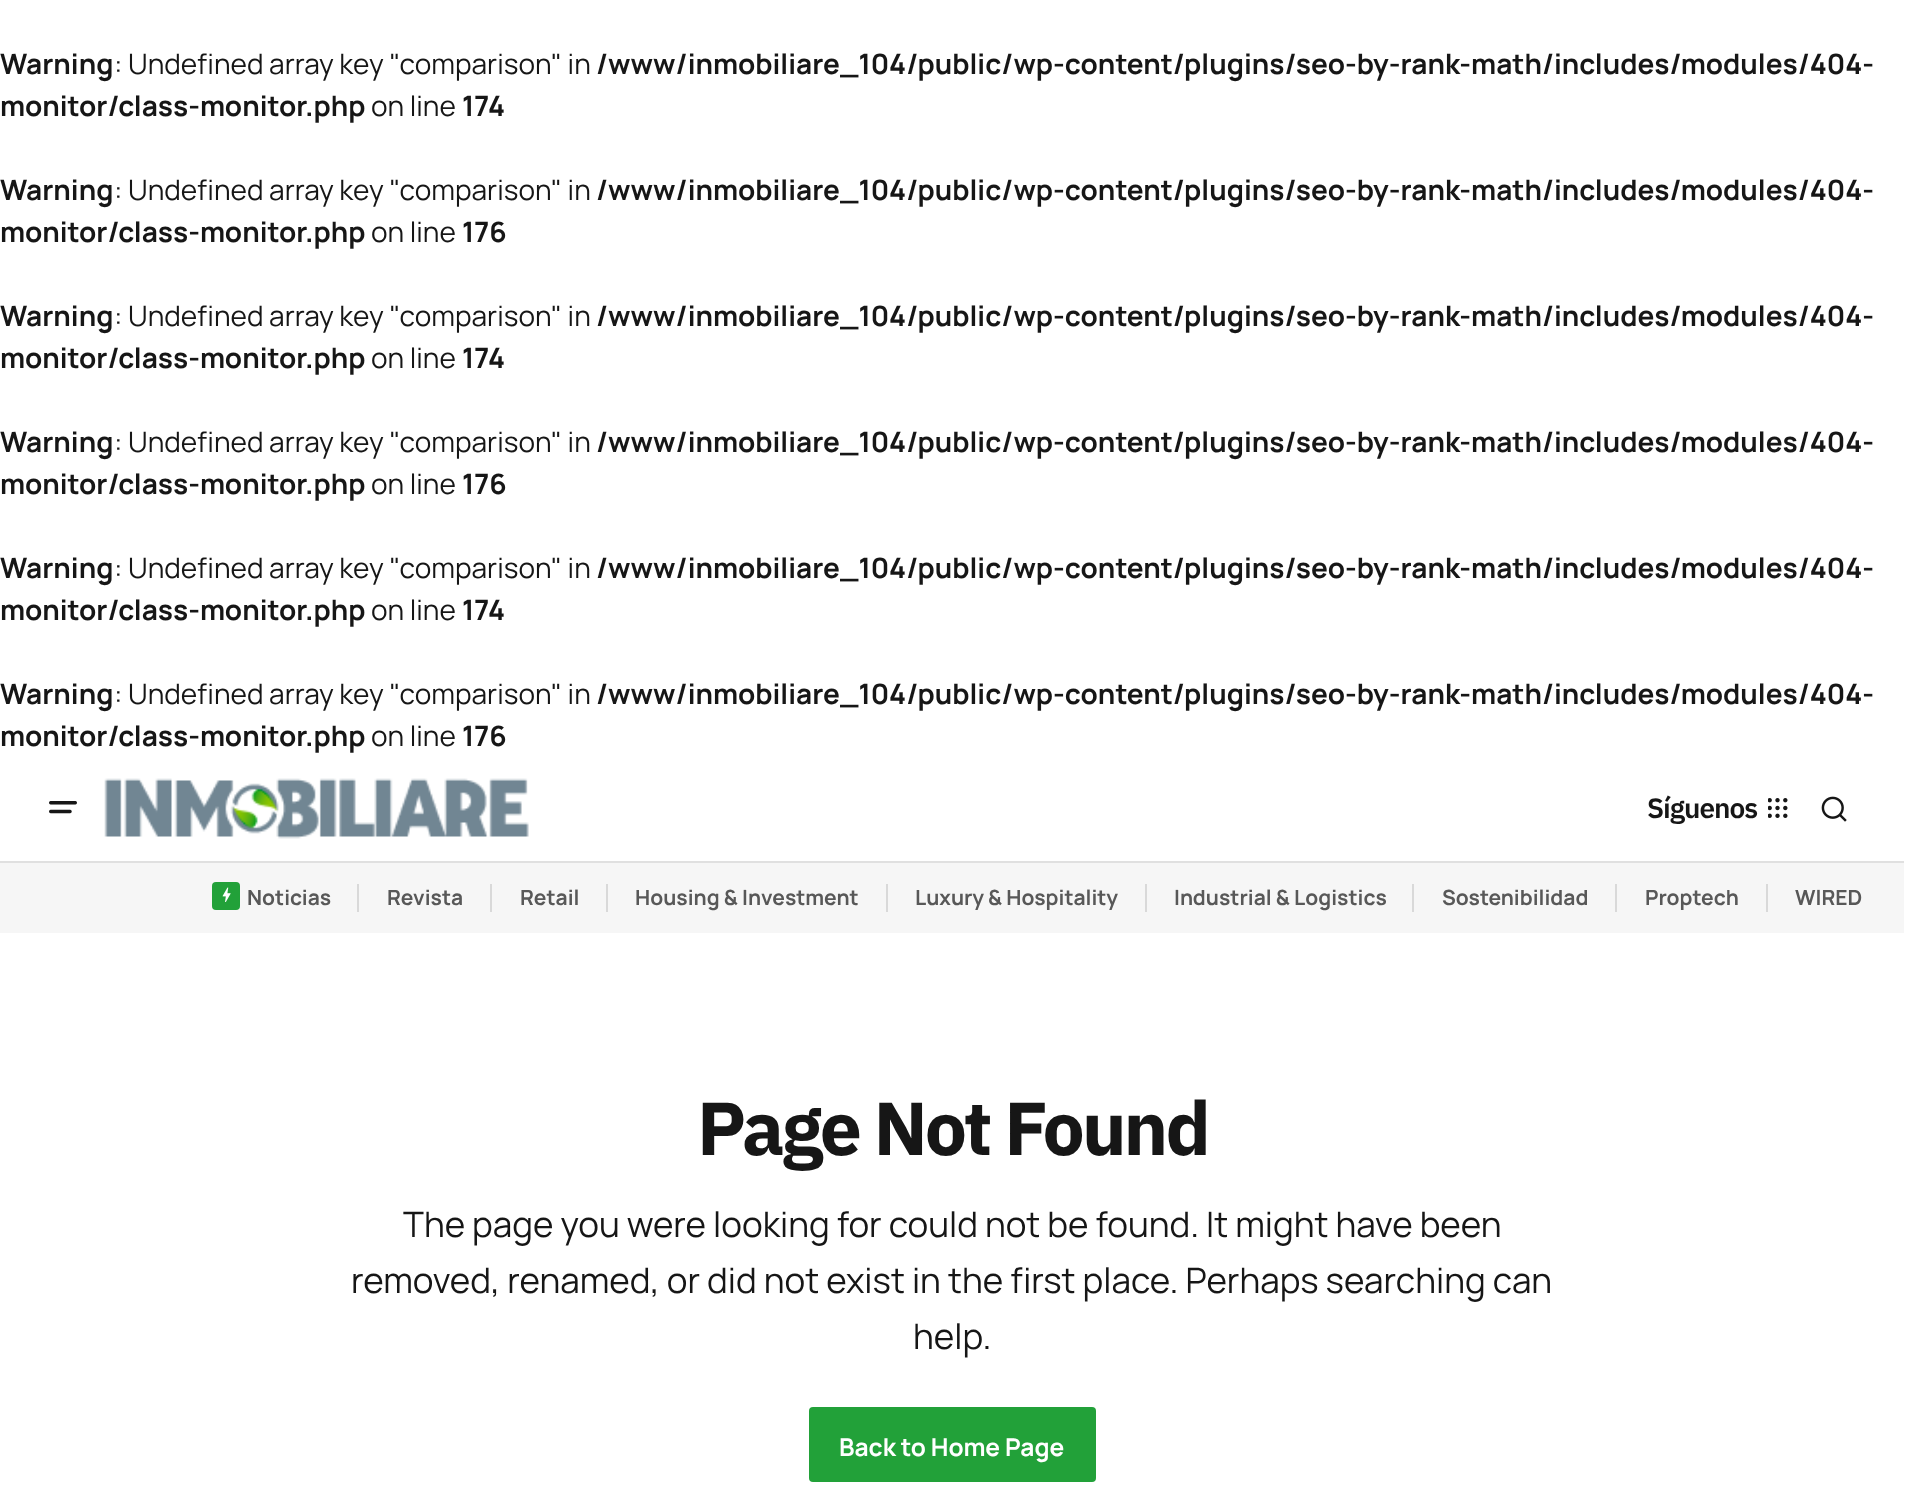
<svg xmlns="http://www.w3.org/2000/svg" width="1929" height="1510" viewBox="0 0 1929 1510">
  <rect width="100%" height="100%" fill="#fff"/>
  <image x="49" y="801" width="28" height="13" href="img/1.png"/>
  <image x="104" y="778" width="425" height="61" href="img/2.png"/>
  <image x="1768" y="798" width="20" height="20" href="img/3.png"/>
  <image x="1821" y="796" width="26" height="26" href="img/4.png"/>
  <path d="M0 861h1904v2H0z" fill="#e0e0e0"/>
  <path d="M0 863h1904v70H0z" fill="#f6f6f6"/>
  <rect x="212" y="882" width="28" height="28" rx="4" fill="#22a139"/>
  <image x="222" y="887" width="9" height="15" href="img/5.png"/>
  <path d="M357 884h2v28H357z" fill="#d9d9d9"/>
  <path d="M490 884h2v28H490z" fill="#d9d9d9"/>
  <path d="M606 884h2v28H606z" fill="#d9d9d9"/>
  <path d="M886 884h2v28H886z" fill="#d9d9d9"/>
  <path d="M1145 884h2v28H1145z" fill="#d9d9d9"/>
  <path d="M1412 884h2v28H1412z" fill="#d9d9d9"/>
  <path d="M1615 884h2v28H1615z" fill="#d9d9d9"/>
  <path d="M1766 884h2v28H1766z" fill="#d9d9d9"/>
  <rect x="809" y="1407" width="287" height="75" rx="4" fill="#22a139"/>
  <text x="0" y="74" font-family="Manrope" font-size="28" font-weight="bold" fill="#161616">Warning</text>
  <text x="114" y="74" font-family="Manrope" font-size="28" fill="#161616">: Undefined array key "comparison" in</text>
  <g font-family="Manrope" font-size="28" font-weight="bold" fill="#161616">
    <text x="596" y="74">/www/inmobiliare_104/public/wp-content/plugins/seo-by-rank-math/includes/modules/404-</text>
    <text x="0" y="116">monitor/class-monitor.php</text>
  </g>
  <text x="371" y="116" font-family="Manrope" font-size="28" fill="#161616">on line</text>
  <g font-family="Manrope" font-size="28" font-weight="bold" fill="#161616">
    <text x="462" y="116">174</text>
    <text x="0" y="200">Warning</text>
  </g>
  <text x="114" y="200" font-family="Manrope" font-size="28" fill="#161616">: Undefined array key "comparison" in</text>
  <g font-family="Manrope" font-size="28" font-weight="bold" fill="#161616">
    <text x="596" y="200">/www/inmobiliare_104/public/wp-content/plugins/seo-by-rank-math/includes/modules/404-</text>
    <text x="0" y="242">monitor/class-monitor.php</text>
  </g>
  <text x="371" y="242" font-family="Manrope" font-size="28" fill="#161616">on line</text>
  <g font-family="Manrope" font-size="28" font-weight="bold" fill="#161616">
    <text x="462" y="242">176</text>
    <text x="0" y="326">Warning</text>
  </g>
  <text x="114" y="326" font-family="Manrope" font-size="28" fill="#161616">: Undefined array key "comparison" in</text>
  <g font-family="Manrope" font-size="28" font-weight="bold" fill="#161616">
    <text x="596" y="326">/www/inmobiliare_104/public/wp-content/plugins/seo-by-rank-math/includes/modules/404-</text>
    <text x="0" y="368">monitor/class-monitor.php</text>
  </g>
  <text x="371" y="368" font-family="Manrope" font-size="28" fill="#161616">on line</text>
  <g font-family="Manrope" font-size="28" font-weight="bold" fill="#161616">
    <text x="462" y="368">174</text>
    <text x="0" y="452">Warning</text>
  </g>
  <text x="114" y="452" font-family="Manrope" font-size="28" fill="#161616">: Undefined array key "comparison" in</text>
  <g font-family="Manrope" font-size="28" font-weight="bold" fill="#161616">
    <text x="596" y="452">/www/inmobiliare_104/public/wp-content/plugins/seo-by-rank-math/includes/modules/404-</text>
    <text x="0" y="494">monitor/class-monitor.php</text>
  </g>
  <text x="371" y="494" font-family="Manrope" font-size="28" fill="#161616">on line</text>
  <g font-family="Manrope" font-size="28" font-weight="bold" fill="#161616">
    <text x="462" y="494">176</text>
    <text x="0" y="578">Warning</text>
  </g>
  <text x="114" y="578" font-family="Manrope" font-size="28" fill="#161616">: Undefined array key "comparison" in</text>
  <g font-family="Manrope" font-size="28" font-weight="bold" fill="#161616">
    <text x="596" y="578">/www/inmobiliare_104/public/wp-content/plugins/seo-by-rank-math/includes/modules/404-</text>
    <text x="0" y="620">monitor/class-monitor.php</text>
  </g>
  <text x="371" y="620" font-family="Manrope" font-size="28" fill="#161616">on line</text>
  <g font-family="Manrope" font-size="28" font-weight="bold" fill="#161616">
    <text x="462" y="620">174</text>
    <text x="0" y="704">Warning</text>
  </g>
  <text x="114" y="704" font-family="Manrope" font-size="28" fill="#161616">: Undefined array key "comparison" in</text>
  <g font-family="Manrope" font-size="28" font-weight="bold" fill="#161616">
    <text x="596" y="704">/www/inmobiliare_104/public/wp-content/plugins/seo-by-rank-math/includes/modules/404-</text>
    <text x="0" y="746">monitor/class-monitor.php</text>
  </g>
  <text x="371" y="746" font-family="Manrope" font-size="28" fill="#161616">on line</text>
  <text x="462" y="746" font-family="Manrope" font-size="28" font-weight="bold" fill="#161616">176</text>
  <text x="1647" y="818" font-family="IBM Plex Sans" font-size="28" font-weight="600" letter-spacing="-1" fill="#161616">Síguenos</text>
  <g font-family="Manrope" font-size="21" font-weight="bold" fill="#585858">
    <text x="247" y="905">Noticias</text>
    <text x="387" y="905">Revista</text>
    <text x="520" y="905">Retail</text>
    <text x="635" y="905">Housing &amp; Investment</text>
    <text x="915" y="905">Luxury &amp; Hospitality</text>
    <text x="1174" y="905">Industrial &amp; Logistics</text>
    <text x="1442" y="905">Sostenibilidad</text>
    <text x="1645" y="905">Proptech</text>
    <text x="1795" y="905">WIRED</text>
  </g>
  <text x="697" y="1155" font-family="IBM Plex Sans" font-size="75" font-weight="bold" letter-spacing="-3" fill="#161616">Page Not Found</text>
  <g font-family="Manrope" font-size="35" fill="#161616">
    <text x="403" y="1237">The page you were looking for could not be found. It might have been</text>
    <text x="351" y="1293">removed, renamed, or did not exist in the first place. Perhaps searching can</text>
    <text x="913" y="1349">help.</text>
  </g>
  <text x="839" y="1456" font-family="Manrope" font-size="24.5" font-weight="bold" fill="#fff">Back to Home Page</text>
</svg>
